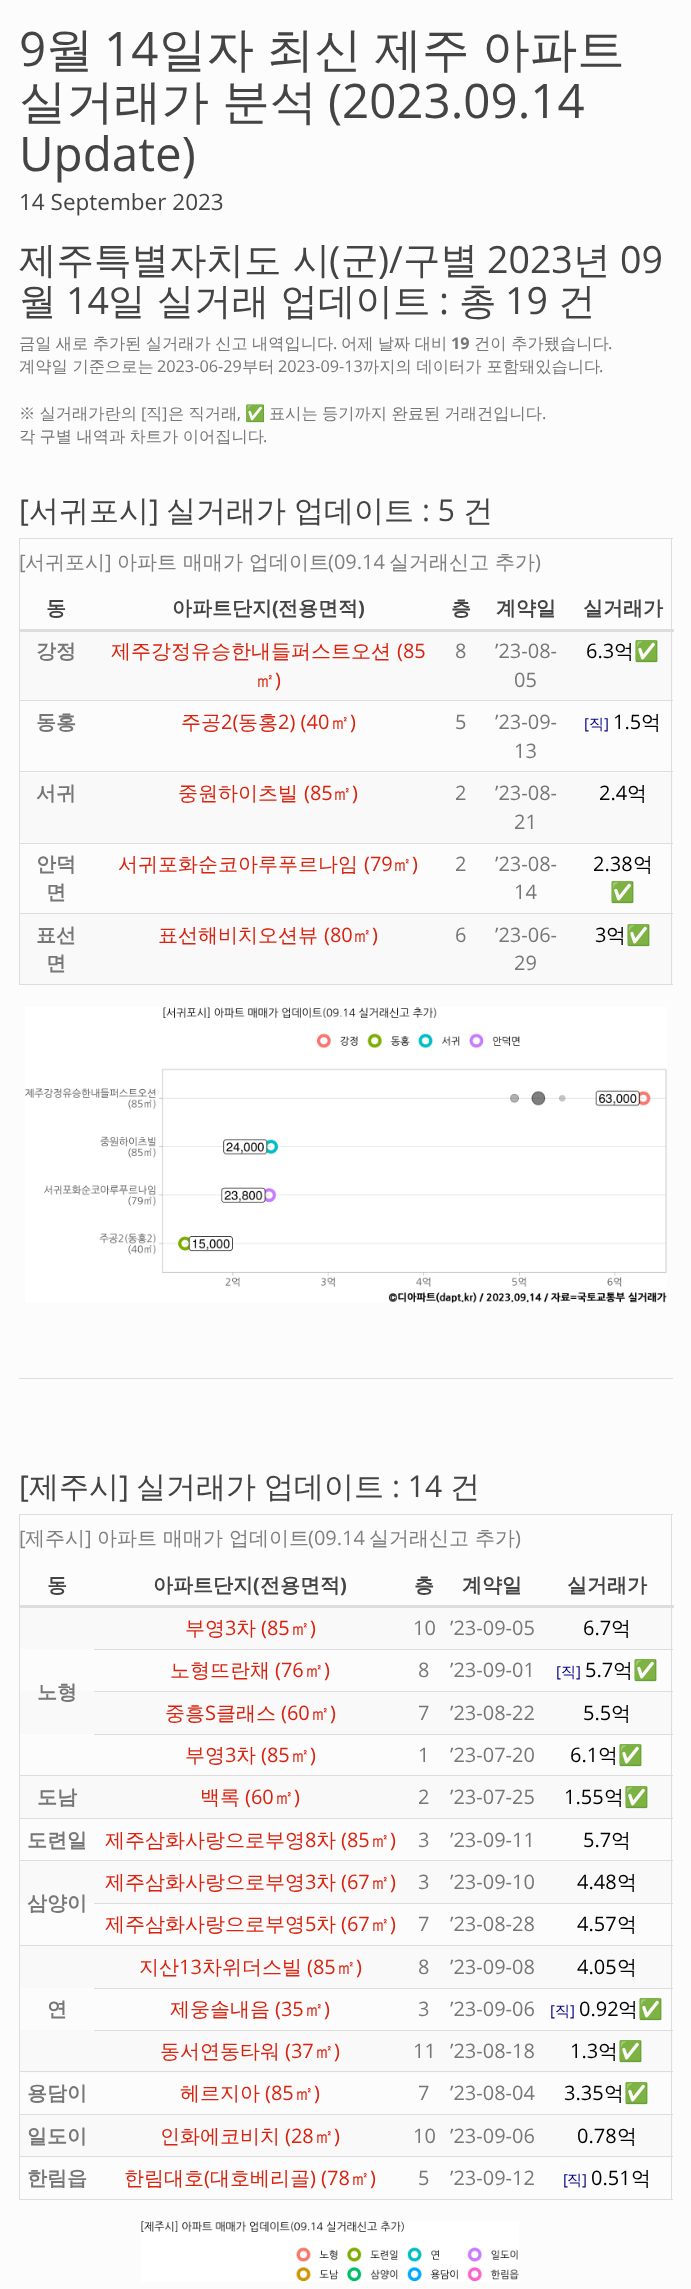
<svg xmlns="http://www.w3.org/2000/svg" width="691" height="2289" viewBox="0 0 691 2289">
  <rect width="100%" height="100%" fill="#fcfcfc"/>
  <path d="M19 538h654v1H19z" fill="#ddd"/>
  <path d="M20 632h653v68H20z" fill="#f9f9f9"/>
  <path d="M20 773h653v70H20z" fill="#f9f9f9"/>
  <path d="M20 914h653v70H20z" fill="#f9f9f9"/>
  <path d="M671 538h1v447H671z" fill="#ddd"/>
  <path d="M19 984h654v1H19z" fill="#ddd"/>
  <path d="M19 538h1v447H19z" fill="#ddd"/>
  <path d="M19 629h655v3H19z" fill="#ddd"/>
  <path d="M19 700h654v1H19z" fill="#ddd"/>
  <path d="M19 771h654v1H19z" fill="#ddd"/>
  <path d="M19 843h654v1H19z" fill="#ddd"/>
  <path d="M19 913h654v1H19z" fill="#ddd"/>
  <image x="25" y="1007" width="642" height="296" href="img/1.png"/>
  <path d="M19 1378h654v1H19z" fill="#ddd"/>
  <path d="M19 1514h654v1H19z" fill="#ddd"/>
  <path d="M20 1608h653v41H20z" fill="#f9f9f9"/>
  <path d="M20 1691h653v43H20z" fill="#f9f9f9"/>
  <path d="M20 1776h653v42H20z" fill="#f9f9f9"/>
  <path d="M20 1861h653v42H20z" fill="#f9f9f9"/>
  <path d="M20 1946h653v42H20z" fill="#f9f9f9"/>
  <path d="M20 2030h653v43H20z" fill="#f9f9f9"/>
  <path d="M20 2115h653v43H20z" fill="#f9f9f9"/>
  <path d="M671 1514h1v686H671z" fill="#ddd"/>
  <path d="M19 2199h654v1H19z" fill="#ddd"/>
  <path d="M19 1514h1v686H19z" fill="#ddd"/>
  <path d="M19 1605h655v3H19z" fill="#ddd"/>
  <path d="M94 1649h579v1H94z" fill="#ddd"/>
  <path d="M94 1691h579v1H94z" fill="#ddd"/>
  <path d="M94 1734h579v1H94z" fill="#ddd"/>
  <path d="M19 1775h654v1H19z" fill="#ddd"/>
  <path d="M19 1818h654v1H19z" fill="#ddd"/>
  <path d="M19 1860h654v1H19z" fill="#ddd"/>
  <path d="M94 1903h579v1H94z" fill="#ddd"/>
  <path d="M19 1945h654v1H19z" fill="#ddd"/>
  <path d="M94 1988h579v1H94z" fill="#ddd"/>
  <path d="M94 2030h579v1H94z" fill="#ddd"/>
  <path d="M19 2071h654v1H19z" fill="#ddd"/>
  <path d="M19 2114h654v1H19z" fill="#ddd"/>
  <path d="M19 2156h654v1H19z" fill="#ddd"/>
  <image x="141" y="2221" width="378" height="61" href="img/2.png"/>
  <text x="19" y="66" font-family="Open Sans" font-size="47.5" fill="#444">9</text>
  <text x="46" y="66" font-family="WenQuanYi Zen Hei" font-size="47.5" font-weight="500" fill="#444">월</text>
  <text x="104" y="66" font-family="Open Sans" font-size="47.5" fill="#444">14</text>
  <g font-family="WenQuanYi Zen Hei" font-size="47.5" font-weight="500" fill="#444">
    <text x="159" y="66" word-spacing="-1.5">일자 최신 제주 아파트</text>
    <text x="19" y="118" word-spacing="-1">실거래가 분석</text>
  </g>
  <g font-family="Open Sans" font-size="47.5" fill="#444">
    <text x="328" y="118">(2023.09.14</text>
    <text x="19" y="171">Update)</text>
  </g>
  <text x="19" y="210" font-family="Open Sans" font-size="22.5" fill="#444">14 September 2023</text>
  <text x="19" y="273" font-family="WenQuanYi Zen Hei" font-size="37.5" font-weight="500" fill="#444">제주특별자치도 시</text>
  <text x="329" y="273" font-family="Open Sans" font-size="37.5" fill="#444">(</text>
  <text x="341" y="273" font-family="WenQuanYi Zen Hei" font-size="37.5" font-weight="500" fill="#444">군</text>
  <text x="378" y="273" font-family="Open Sans" font-size="37.5" fill="#444">)/</text>
  <text x="403" y="273" font-family="WenQuanYi Zen Hei" font-size="37.5" font-weight="500" fill="#444">구별</text>
  <text x="487" y="273" font-family="Open Sans" font-size="37.5" fill="#444">2023</text>
  <text x="573" y="273" font-family="WenQuanYi Zen Hei" font-size="37.5" font-weight="500" fill="#444">년</text>
  <text x="620" y="273" font-family="Open Sans" font-size="37.5" fill="#444">09</text>
  <text x="19" y="314" font-family="WenQuanYi Zen Hei" font-size="37.5" font-weight="500" fill="#444">월</text>
  <text x="66" y="314" font-family="Open Sans" font-size="37.5" fill="#444">14</text>
  <text x="108" y="314" font-family="WenQuanYi Zen Hei" font-size="37.5" font-weight="500" fill="#444">일 실거래 업데이트</text>
  <text x="439" y="314" font-family="Open Sans" font-size="37.5" fill="#444">:</text>
  <text x="459" y="314" font-family="WenQuanYi Zen Hei" font-size="37.5" font-weight="500" fill="#444">총</text>
  <text x="505" y="314" font-family="Open Sans" font-size="37.5" fill="#444">19</text>
  <text x="558" y="314" font-family="WenQuanYi Zen Hei" font-size="37.5" font-weight="500" fill="#444">건</text>
  <text x="19" y="349" word-spacing="-0.5" font-family="WenQuanYi Zen Hei" font-size="16.25" font-weight="500" fill="#777">금일 새로 추가된 실거래가 신고 내역입니다</text>
  <text x="333" y="349" font-family="Open Sans" font-size="16.25" fill="#777">.</text>
  <text x="341" y="349" word-spacing="-0.5" font-family="WenQuanYi Zen Hei" font-size="16.25" font-weight="500" fill="#777">어제 날짜 대비</text>
  <text x="451" y="349" font-family="Open Sans" font-size="16.25" font-weight="bold" fill="#777">19</text>
  <text x="474" y="349" font-family="WenQuanYi Zen Hei" font-size="16.25" font-weight="500" fill="#777">건이 추가됐습니다</text>
  <text x="608" y="349" font-family="Open Sans" font-size="16.25" fill="#777">.</text>
  <text x="19" y="372" font-family="WenQuanYi Zen Hei" font-size="16.25" font-weight="500" fill="#777">계약일 기준으로는</text>
  <text x="157" y="372" font-family="Open Sans" font-size="16.25" fill="#777">2023-06-29</text>
  <text x="242" y="372" font-family="WenQuanYi Zen Hei" font-size="16.25" font-weight="500" fill="#777">부터</text>
  <text x="278" y="372" font-family="Open Sans" font-size="16.25" fill="#777">2023-09-13</text>
  <text x="363" y="372" font-family="WenQuanYi Zen Hei" font-size="16.25" font-weight="500" fill="#777">까지의 데이터가 포함돼있습니다</text>
  <text x="599" y="372" font-family="Open Sans" font-size="16.25" fill="#777">.</text>
  <text x="19" y="419" word-spacing="-0.5" font-family="WenQuanYi Zen Hei" font-size="16.25" font-weight="500" fill="#777">※ 실거래가란의</text>
  <text x="141" y="419" font-family="Open Sans" font-size="16.25" fill="#777">[</text>
  <text x="146" y="419" font-family="WenQuanYi Zen Hei" font-size="16.25" font-weight="500" fill="#777">직</text>
  <text x="162" y="419" font-family="Open Sans" font-size="16.25" fill="#777">]</text>
  <text x="168" y="419" word-spacing="-0.5" font-family="WenQuanYi Zen Hei" font-size="16.25" font-weight="500" fill="#777">은 직거래</text>
  <text x="237" y="419" font-family="Open Sans" font-size="16.25" fill="#777">,</text>
  <text x="245" y="419" font-family="Noto Color Emoji" font-size="16.25" fill="#777">✅</text>
  <text x="269" y="419" word-spacing="-0.5" font-family="WenQuanYi Zen Hei" font-size="16.25" font-weight="500" fill="#777">표시는 등기까지 완료된 거래건입니다</text>
  <text x="542" y="419" font-family="Open Sans" font-size="16.25" fill="#777">.</text>
  <text x="19" y="442" word-spacing="-0.5" font-family="WenQuanYi Zen Hei" font-size="16.25" font-weight="500" fill="#777">각 구별 내역과 차트가 이어집니다</text>
  <text x="263" y="442" font-family="Open Sans" font-size="16.25" fill="#777">.</text>
  <text x="19" y="521" font-family="Open Sans" font-size="30" fill="#444">[</text>
  <text x="29" y="521" font-family="WenQuanYi Zen Hei" font-size="30" font-weight="500" fill="#444">서귀포시</text>
  <text x="149" y="521" font-family="Open Sans" font-size="30" fill="#444">]</text>
  <g font-family="WenQuanYi Zen Hei" font-size="30" font-weight="500" fill="#444">
    <text x="166" y="521">실거래가</text>
    <text x="294" y="521">업데이트</text>
  </g>
  <text x="422" y="521" font-family="Open Sans" font-size="30" fill="#444">: 5</text>
  <text x="463" y="521" font-family="WenQuanYi Zen Hei" font-size="30" font-weight="500" fill="#444">건</text>
  <text x="19" y="569" font-family="Open Sans" font-size="20" fill="#808080">[</text>
  <text x="25" y="569" font-family="WenQuanYi Zen Hei" font-size="20" font-weight="500" fill="#808080">서귀포시</text>
  <text x="105" y="569" font-family="Open Sans" font-size="20" fill="#808080">]</text>
  <text x="117" y="569" font-family="WenQuanYi Zen Hei" font-size="20" font-weight="500" fill="#808080">아파트 매매가 업데이트</text>
  <text x="328" y="569" font-family="Open Sans" font-size="20" fill="#808080">(09.14</text>
  <text x="389" y="569" font-family="WenQuanYi Zen Hei" font-size="20" font-weight="500" fill="#808080">실거래신고 추가</text>
  <text x="535" y="569" font-family="Open Sans" font-size="20" fill="#808080">)</text>
  <g font-family="WenQuanYi Zen Hei" font-size="20" font-weight="bold" fill="#444">
    <text x="46" y="615">동</text>
    <text x="172" y="615">아파트단지</text>
  </g>
  <text x="272" y="615" font-family="Open Sans" font-size="20" font-weight="bold" fill="#444">(</text>
  <text x="278" y="615" font-family="WenQuanYi Zen Hei" font-size="20" font-weight="bold" fill="#444">전용면적</text>
  <text x="358" y="615" font-family="Open Sans" font-size="20" font-weight="bold" fill="#444">)</text>
  <g font-family="WenQuanYi Zen Hei" font-size="20" font-weight="bold" fill="#444">
    <text x="451" y="615">층</text>
    <text x="496" y="615">계약일</text>
    <text x="583" y="615">실거래가</text>
  </g>
  <text x="36" y="658" font-family="WenQuanYi Zen Hei" font-size="20" font-weight="bold" fill="#777">강정</text>
  <text x="111" y="658" font-family="WenQuanYi Zen Hei" font-size="20" font-weight="500" fill="#d9230f">제주강정유승한내들퍼스트오션</text>
  <text x="397" y="658" font-family="Open Sans" font-size="20" fill="#d9230f">(85</text>
  <text x="255" y="687" font-family="WenQuanYi Zen Hei" font-size="20" font-weight="500" fill="#d9230f">㎡</text>
  <text x="275" y="687" font-family="Open Sans" font-size="20" fill="#d9230f">)️</text>
  <g font-family="Open Sans" font-size="20" fill="#777">
    <text x="455" y="658">8</text>
    <text x="495" y="658">’23-08-</text>
    <text x="514" y="687">05</text>
  </g>
  <text x="586" y="658" font-family="Open Sans" font-size="20" fill="#000">6.3</text>
  <text x="614" y="658" font-family="WenQuanYi Zen Hei" font-size="20" font-weight="500" fill="#000">억</text>
  <text x="634" y="658" font-family="Noto Color Emoji" font-size="20" fill="#000">✅</text>
  <text x="36" y="729" font-family="WenQuanYi Zen Hei" font-size="20" font-weight="bold" fill="#777">동홍</text>
  <text x="181" y="729" font-family="WenQuanYi Zen Hei" font-size="20" font-weight="500" fill="#d9230f">주공</text>
  <text x="221" y="729" font-family="Open Sans" font-size="20" fill="#d9230f">2(</text>
  <text x="238" y="729" font-family="WenQuanYi Zen Hei" font-size="20" font-weight="500" fill="#d9230f">동홍</text>
  <text x="278" y="729" font-family="Open Sans" font-size="20" fill="#d9230f">2) (40</text>
  <text x="330" y="729" font-family="WenQuanYi Zen Hei" font-size="20" font-weight="500" fill="#d9230f">㎡</text>
  <text x="350" y="729" font-family="Open Sans" font-size="20" fill="#d9230f">)️</text>
  <g font-family="Open Sans" font-size="20" fill="#777">
    <text x="455" y="729">5</text>
    <text x="495" y="729">’23-09-</text>
    <text x="514" y="758">13</text>
  </g>
  <text x="584" y="729" font-family="Open Sans" font-size="15" fill="#000080">[</text>
  <text x="589" y="729" font-family="WenQuanYi Zen Hei" font-size="15" font-weight="500" fill="#000080">직</text>
  <text x="604" y="729" font-family="Open Sans" font-size="15" fill="#000080">]</text>
  <text x="613" y="729" font-family="Open Sans" font-size="20" fill="#000">1.5</text>
  <text x="641" y="729" font-family="WenQuanYi Zen Hei" font-size="20" font-weight="500" fill="#000">억</text>
  <text x="36" y="800" font-family="WenQuanYi Zen Hei" font-size="20" font-weight="bold" fill="#777">서귀</text>
  <text x="178" y="800" font-family="WenQuanYi Zen Hei" font-size="20" font-weight="500" fill="#d9230f">중원하이츠빌</text>
  <text x="304" y="800" font-family="Open Sans" font-size="20" fill="#d9230f">(85</text>
  <text x="332" y="800" font-family="WenQuanYi Zen Hei" font-size="20" font-weight="500" fill="#d9230f">㎡</text>
  <text x="352" y="800" font-family="Open Sans" font-size="20" fill="#d9230f">)️</text>
  <g font-family="Open Sans" font-size="20" fill="#777">
    <text x="455" y="800">2</text>
    <text x="495" y="800">’23-08-</text>
    <text x="514" y="829">21</text>
  </g>
  <text x="599" y="800" font-family="Open Sans" font-size="20" fill="#000">2.4</text>
  <text x="627" y="800" font-family="WenQuanYi Zen Hei" font-size="20" font-weight="500" fill="#000">억</text>
  <g font-family="WenQuanYi Zen Hei" font-size="20" font-weight="bold" fill="#777">
    <text x="36" y="871">안덕</text>
    <text x="46" y="899">면</text>
  </g>
  <text x="118" y="871" font-family="WenQuanYi Zen Hei" font-size="20" font-weight="500" fill="#d9230f">서귀포화순코아루푸르나임</text>
  <text x="364" y="871" font-family="Open Sans" font-size="20" fill="#d9230f">(79</text>
  <text x="392" y="871" font-family="WenQuanYi Zen Hei" font-size="20" font-weight="500" fill="#d9230f">㎡</text>
  <text x="412" y="871" font-family="Open Sans" font-size="20" fill="#d9230f">)️</text>
  <g font-family="Open Sans" font-size="20" fill="#777">
    <text x="455" y="871">2</text>
    <text x="495" y="871">’23-08-</text>
    <text x="514" y="899">14</text>
  </g>
  <text x="593" y="871" font-family="Open Sans" font-size="20" fill="#000">2.38</text>
  <text x="633" y="871" font-family="WenQuanYi Zen Hei" font-size="20" font-weight="500" fill="#000">억</text>
  <text x="610" y="899" font-family="Noto Color Emoji" font-size="20" fill="#000">✅</text>
  <g font-family="WenQuanYi Zen Hei" font-size="20" font-weight="bold" fill="#777">
    <text x="36" y="942">표선</text>
    <text x="46" y="970">면</text>
  </g>
  <text x="158" y="942" font-family="WenQuanYi Zen Hei" font-size="20" font-weight="500" fill="#d9230f">표선해비치오션뷰</text>
  <text x="324" y="942" font-family="Open Sans" font-size="20" fill="#d9230f">(80</text>
  <text x="352" y="942" font-family="WenQuanYi Zen Hei" font-size="20" font-weight="500" fill="#d9230f">㎡</text>
  <text x="372" y="942" font-family="Open Sans" font-size="20" fill="#d9230f">)️</text>
  <g font-family="Open Sans" font-size="20" fill="#777">
    <text x="455" y="942">6</text>
    <text x="495" y="942">’23-06-</text>
    <text x="514" y="970">29</text>
  </g>
  <text x="595" y="942" font-family="Open Sans" font-size="20" fill="#000">3</text>
  <text x="606" y="942" font-family="WenQuanYi Zen Hei" font-size="20" font-weight="500" fill="#000">억</text>
  <text x="626" y="942" font-family="Noto Color Emoji" font-size="20" fill="#000">✅</text>
  <text x="19" y="1497" font-family="Open Sans" font-size="30" fill="#444">[</text>
  <text x="29" y="1497" font-family="WenQuanYi Zen Hei" font-size="30" font-weight="500" fill="#444">제주시</text>
  <text x="119" y="1497" font-family="Open Sans" font-size="30" fill="#444">]</text>
  <g font-family="WenQuanYi Zen Hei" font-size="30" font-weight="500" fill="#444">
    <text x="136" y="1497">실거래가</text>
    <text x="264" y="1497">업데이트</text>
  </g>
  <text x="392" y="1497" font-family="Open Sans" font-size="30" fill="#444">: 14</text>
  <text x="450" y="1497" font-family="WenQuanYi Zen Hei" font-size="30" font-weight="500" fill="#444">건</text>
  <text x="19" y="1545" font-family="Open Sans" font-size="20" fill="#808080">[</text>
  <text x="25" y="1545" font-family="WenQuanYi Zen Hei" font-size="20" font-weight="500" fill="#808080">제주시</text>
  <text x="85" y="1545" font-family="Open Sans" font-size="20" fill="#808080">]</text>
  <text x="97" y="1545" font-family="WenQuanYi Zen Hei" font-size="20" font-weight="500" fill="#808080">아파트 매매가 업데이트</text>
  <text x="308" y="1545" font-family="Open Sans" font-size="20" fill="#808080">(09.14</text>
  <text x="369" y="1545" font-family="WenQuanYi Zen Hei" font-size="20" font-weight="500" fill="#808080">실거래신고 추가</text>
  <text x="515" y="1545" font-family="Open Sans" font-size="20" fill="#808080">)</text>
  <g font-family="WenQuanYi Zen Hei" font-size="20" font-weight="bold" fill="#444">
    <text x="47" y="1592">동</text>
    <text x="153" y="1592">아파트단지</text>
  </g>
  <text x="253" y="1592" font-family="Open Sans" font-size="20" font-weight="bold" fill="#444">(</text>
  <text x="260" y="1592" font-family="WenQuanYi Zen Hei" font-size="20" font-weight="bold" fill="#444">전용면적</text>
  <text x="340" y="1592" font-family="Open Sans" font-size="20" font-weight="bold" fill="#444">)</text>
  <g font-family="WenQuanYi Zen Hei" font-size="20" font-weight="bold" fill="#444">
    <text x="414" y="1592">층</text>
    <text x="462" y="1592">계약일</text>
    <text x="567" y="1592">실거래가</text>
  </g>
  <text x="185" y="1635" font-family="WenQuanYi Zen Hei" font-size="20" font-weight="500" fill="#d9230f">부영</text>
  <text x="225" y="1635" font-family="Open Sans" font-size="20" fill="#d9230f">3</text>
  <text x="236" y="1635" font-family="WenQuanYi Zen Hei" font-size="20" font-weight="500" fill="#d9230f">차</text>
  <text x="261" y="1635" font-family="Open Sans" font-size="20" fill="#d9230f">(85</text>
  <text x="290" y="1635" font-family="WenQuanYi Zen Hei" font-size="20" font-weight="500" fill="#d9230f">㎡</text>
  <text x="310" y="1635" font-family="Open Sans" font-size="20" fill="#d9230f">)️</text>
  <g font-family="Open Sans" font-size="20" fill="#777">
    <text x="413" y="1635">10</text>
    <text x="450" y="1635">’23-09-05</text>
  </g>
  <text x="583" y="1635" font-family="Open Sans" font-size="20" fill="#000">6.7</text>
  <text x="611" y="1635" font-family="WenQuanYi Zen Hei" font-size="20" font-weight="500" fill="#000">억</text>
  <text x="37" y="1699" font-family="WenQuanYi Zen Hei" font-size="20" font-weight="bold" fill="#777">노형</text>
  <text x="170" y="1677" font-family="WenQuanYi Zen Hei" font-size="20" font-weight="500" fill="#d9230f">노형뜨란채</text>
  <text x="275" y="1677" font-family="Open Sans" font-size="20" fill="#d9230f">(76</text>
  <text x="304" y="1677" font-family="WenQuanYi Zen Hei" font-size="20" font-weight="500" fill="#d9230f">㎡</text>
  <text x="324" y="1677" font-family="Open Sans" font-size="20" fill="#d9230f">)️</text>
  <g font-family="Open Sans" font-size="20" fill="#777">
    <text x="418" y="1677">8</text>
    <text x="450" y="1677">’23-09-01</text>
  </g>
  <text x="556" y="1677" font-family="Open Sans" font-size="15" fill="#000080">[</text>
  <text x="561" y="1677" font-family="WenQuanYi Zen Hei" font-size="15" font-weight="500" fill="#000080">직</text>
  <text x="576" y="1677" font-family="Open Sans" font-size="15" fill="#000080">]</text>
  <text x="585" y="1677" font-family="Open Sans" font-size="20" fill="#000">5.7</text>
  <text x="613" y="1677" font-family="WenQuanYi Zen Hei" font-size="20" font-weight="500" fill="#000">억</text>
  <text x="633" y="1677" font-family="Noto Color Emoji" font-size="20" fill="#000">✅</text>
  <text x="165" y="1720" font-family="WenQuanYi Zen Hei" font-size="20" font-weight="500" fill="#d9230f">중흥</text>
  <text x="205" y="1720" font-family="Open Sans" font-size="20" fill="#d9230f">S</text>
  <text x="216" y="1720" font-family="WenQuanYi Zen Hei" font-size="20" font-weight="500" fill="#d9230f">클래스</text>
  <text x="281" y="1720" font-family="Open Sans" font-size="20" fill="#d9230f">(60</text>
  <text x="310" y="1720" font-family="WenQuanYi Zen Hei" font-size="20" font-weight="500" fill="#d9230f">㎡</text>
  <text x="330" y="1720" font-family="Open Sans" font-size="20" fill="#d9230f">)️</text>
  <g font-family="Open Sans" font-size="20" fill="#777">
    <text x="418" y="1720">7</text>
    <text x="450" y="1720">’23-08-22</text>
  </g>
  <text x="583" y="1720" font-family="Open Sans" font-size="20" fill="#000">5.5</text>
  <text x="611" y="1720" font-family="WenQuanYi Zen Hei" font-size="20" font-weight="500" fill="#000">억</text>
  <text x="185" y="1762" font-family="WenQuanYi Zen Hei" font-size="20" font-weight="500" fill="#d9230f">부영</text>
  <text x="225" y="1762" font-family="Open Sans" font-size="20" fill="#d9230f">3</text>
  <text x="236" y="1762" font-family="WenQuanYi Zen Hei" font-size="20" font-weight="500" fill="#d9230f">차</text>
  <text x="261" y="1762" font-family="Open Sans" font-size="20" fill="#d9230f">(85</text>
  <text x="290" y="1762" font-family="WenQuanYi Zen Hei" font-size="20" font-weight="500" fill="#d9230f">㎡</text>
  <text x="310" y="1762" font-family="Open Sans" font-size="20" fill="#d9230f">)️</text>
  <g font-family="Open Sans" font-size="20" fill="#777">
    <text x="418" y="1762">1</text>
    <text x="450" y="1762">’23-07-20</text>
  </g>
  <text x="570" y="1762" font-family="Open Sans" font-size="20" fill="#000">6.1</text>
  <text x="598" y="1762" font-family="WenQuanYi Zen Hei" font-size="20" font-weight="500" fill="#000">억</text>
  <text x="618" y="1762" font-family="Noto Color Emoji" font-size="20" fill="#000">✅</text>
  <text x="37" y="1804" font-family="WenQuanYi Zen Hei" font-size="20" font-weight="bold" fill="#777">도남</text>
  <text x="200" y="1804" font-family="WenQuanYi Zen Hei" font-size="20" font-weight="500" fill="#d9230f">백록</text>
  <text x="245" y="1804" font-family="Open Sans" font-size="20" fill="#d9230f">(60</text>
  <text x="274" y="1804" font-family="WenQuanYi Zen Hei" font-size="20" font-weight="500" fill="#d9230f">㎡</text>
  <text x="294" y="1804" font-family="Open Sans" font-size="20" fill="#d9230f">)️</text>
  <g font-family="Open Sans" font-size="20" fill="#777">
    <text x="418" y="1804">2</text>
    <text x="450" y="1804">’23-07-25</text>
  </g>
  <text x="564" y="1804" font-family="Open Sans" font-size="20" fill="#000">1.55</text>
  <text x="604" y="1804" font-family="WenQuanYi Zen Hei" font-size="20" font-weight="500" fill="#000">억</text>
  <text x="624" y="1804" font-family="Noto Color Emoji" font-size="20" fill="#000">✅</text>
  <text x="27" y="1847" font-family="WenQuanYi Zen Hei" font-size="20" font-weight="bold" fill="#777">도련일</text>
  <text x="105" y="1847" font-family="WenQuanYi Zen Hei" font-size="20" font-weight="500" fill="#d9230f">제주삼화사랑으로부영</text>
  <text x="305" y="1847" font-family="Open Sans" font-size="20" fill="#d9230f">8</text>
  <text x="316" y="1847" font-family="WenQuanYi Zen Hei" font-size="20" font-weight="500" fill="#d9230f">차</text>
  <text x="341" y="1847" font-family="Open Sans" font-size="20" fill="#d9230f">(85</text>
  <text x="370" y="1847" font-family="WenQuanYi Zen Hei" font-size="20" font-weight="500" fill="#d9230f">㎡</text>
  <text x="390" y="1847" font-family="Open Sans" font-size="20" fill="#d9230f">)️</text>
  <g font-family="Open Sans" font-size="20" fill="#777">
    <text x="418" y="1847">3</text>
    <text x="450" y="1847">’23-09-11</text>
  </g>
  <text x="583" y="1847" font-family="Open Sans" font-size="20" fill="#000">5.7</text>
  <text x="611" y="1847" font-family="WenQuanYi Zen Hei" font-size="20" font-weight="500" fill="#000">억</text>
  <text x="105" y="1889" font-family="WenQuanYi Zen Hei" font-size="20" font-weight="500" fill="#d9230f">제주삼화사랑으로부영</text>
  <text x="305" y="1889" font-family="Open Sans" font-size="20" fill="#d9230f">3</text>
  <text x="316" y="1889" font-family="WenQuanYi Zen Hei" font-size="20" font-weight="500" fill="#d9230f">차</text>
  <text x="341" y="1889" font-family="Open Sans" font-size="20" fill="#d9230f">(67</text>
  <text x="370" y="1889" font-family="WenQuanYi Zen Hei" font-size="20" font-weight="500" fill="#d9230f">㎡</text>
  <text x="390" y="1889" font-family="Open Sans" font-size="20" fill="#d9230f">)️</text>
  <g font-family="Open Sans" font-size="20" fill="#777">
    <text x="418" y="1889">3</text>
    <text x="450" y="1889">’23-09-10</text>
  </g>
  <text x="577" y="1889" font-family="Open Sans" font-size="20" fill="#000">4.48</text>
  <text x="617" y="1889" font-family="WenQuanYi Zen Hei" font-size="20" font-weight="500" fill="#000">억</text>
  <text x="27" y="1910" font-family="WenQuanYi Zen Hei" font-size="20" font-weight="bold" fill="#777">삼양이</text>
  <text x="105" y="1931" font-family="WenQuanYi Zen Hei" font-size="20" font-weight="500" fill="#d9230f">제주삼화사랑으로부영</text>
  <text x="305" y="1931" font-family="Open Sans" font-size="20" fill="#d9230f">5</text>
  <text x="316" y="1931" font-family="WenQuanYi Zen Hei" font-size="20" font-weight="500" fill="#d9230f">차</text>
  <text x="341" y="1931" font-family="Open Sans" font-size="20" fill="#d9230f">(67</text>
  <text x="370" y="1931" font-family="WenQuanYi Zen Hei" font-size="20" font-weight="500" fill="#d9230f">㎡</text>
  <text x="390" y="1931" font-family="Open Sans" font-size="20" fill="#d9230f">)️</text>
  <g font-family="Open Sans" font-size="20" fill="#777">
    <text x="418" y="1931">7</text>
    <text x="450" y="1931">’23-08-28</text>
  </g>
  <text x="577" y="1931" font-family="Open Sans" font-size="20" fill="#000">4.57</text>
  <text x="617" y="1931" font-family="WenQuanYi Zen Hei" font-size="20" font-weight="500" fill="#000">억</text>
  <text x="139" y="1974" font-family="WenQuanYi Zen Hei" font-size="20" font-weight="500" fill="#d9230f">지산</text>
  <text x="179" y="1974" font-family="Open Sans" font-size="20" fill="#d9230f">13</text>
  <text x="202" y="1974" font-family="WenQuanYi Zen Hei" font-size="20" font-weight="500" fill="#d9230f">차위더스빌</text>
  <text x="307" y="1974" font-family="Open Sans" font-size="20" fill="#d9230f">(85</text>
  <text x="336" y="1974" font-family="WenQuanYi Zen Hei" font-size="20" font-weight="500" fill="#d9230f">㎡</text>
  <text x="356" y="1974" font-family="Open Sans" font-size="20" fill="#d9230f">)️</text>
  <g font-family="Open Sans" font-size="20" fill="#777">
    <text x="418" y="1974">8</text>
    <text x="450" y="1974">’23-09-08</text>
  </g>
  <text x="577" y="1974" font-family="Open Sans" font-size="20" fill="#000">4.05</text>
  <text x="617" y="1974" font-family="WenQuanYi Zen Hei" font-size="20" font-weight="500" fill="#000">억</text>
  <text x="47" y="2016" font-family="WenQuanYi Zen Hei" font-size="20" font-weight="bold" fill="#777">연</text>
  <text x="170" y="2016" font-family="WenQuanYi Zen Hei" font-size="20" font-weight="500" fill="#d9230f">제웅솔내음</text>
  <text x="275" y="2016" font-family="Open Sans" font-size="20" fill="#d9230f">(35</text>
  <text x="304" y="2016" font-family="WenQuanYi Zen Hei" font-size="20" font-weight="500" fill="#d9230f">㎡</text>
  <text x="324" y="2016" font-family="Open Sans" font-size="20" fill="#d9230f">)️</text>
  <g font-family="Open Sans" font-size="20" fill="#777">
    <text x="418" y="2016">3</text>
    <text x="450" y="2016">’23-09-06</text>
  </g>
  <text x="550" y="2016" font-family="Open Sans" font-size="15" fill="#000080">[</text>
  <text x="555" y="2016" font-family="WenQuanYi Zen Hei" font-size="15" font-weight="500" fill="#000080">직</text>
  <text x="570" y="2016" font-family="Open Sans" font-size="15" fill="#000080">]</text>
  <text x="579" y="2016" font-family="Open Sans" font-size="20" fill="#000">0.92</text>
  <text x="618" y="2016" font-family="WenQuanYi Zen Hei" font-size="20" font-weight="500" fill="#000">억</text>
  <text x="638" y="2016" font-family="Noto Color Emoji" font-size="20" fill="#000">✅</text>
  <text x="160" y="2058" font-family="WenQuanYi Zen Hei" font-size="20" font-weight="500" fill="#d9230f">동서연동타워</text>
  <text x="285" y="2058" font-family="Open Sans" font-size="20" fill="#d9230f">(37</text>
  <text x="314" y="2058" font-family="WenQuanYi Zen Hei" font-size="20" font-weight="500" fill="#d9230f">㎡</text>
  <text x="334" y="2058" font-family="Open Sans" font-size="20" fill="#d9230f">)️</text>
  <g font-family="Open Sans" font-size="20" fill="#777">
    <text x="413" y="2058">11</text>
    <text x="450" y="2058">’23-08-18</text>
  </g>
  <text x="570" y="2058" font-family="Open Sans" font-size="20" fill="#000">1.3</text>
  <text x="598" y="2058" font-family="WenQuanYi Zen Hei" font-size="20" font-weight="500" fill="#000">억</text>
  <text x="618" y="2058" font-family="Noto Color Emoji" font-size="20" fill="#000">✅</text>
  <text x="27" y="2100" font-family="WenQuanYi Zen Hei" font-size="20" font-weight="bold" fill="#777">용담이</text>
  <text x="180" y="2100" font-family="WenQuanYi Zen Hei" font-size="20" font-weight="500" fill="#d9230f">헤르지아</text>
  <text x="265" y="2100" font-family="Open Sans" font-size="20" fill="#d9230f">(85</text>
  <text x="294" y="2100" font-family="WenQuanYi Zen Hei" font-size="20" font-weight="500" fill="#d9230f">㎡</text>
  <text x="314" y="2100" font-family="Open Sans" font-size="20" fill="#d9230f">)️</text>
  <g font-family="Open Sans" font-size="20" fill="#777">
    <text x="418" y="2100">7</text>
    <text x="450" y="2100">’23-08-04</text>
  </g>
  <text x="564" y="2100" font-family="Open Sans" font-size="20" fill="#000">3.35</text>
  <text x="604" y="2100" font-family="WenQuanYi Zen Hei" font-size="20" font-weight="500" fill="#000">억</text>
  <text x="624" y="2100" font-family="Noto Color Emoji" font-size="20" fill="#000">✅</text>
  <text x="27" y="2143" font-family="WenQuanYi Zen Hei" font-size="20" font-weight="bold" fill="#777">일도이</text>
  <text x="160" y="2143" font-family="WenQuanYi Zen Hei" font-size="20" font-weight="500" fill="#d9230f">인화에코비치</text>
  <text x="285" y="2143" font-family="Open Sans" font-size="20" fill="#d9230f">(28</text>
  <text x="314" y="2143" font-family="WenQuanYi Zen Hei" font-size="20" font-weight="500" fill="#d9230f">㎡</text>
  <text x="334" y="2143" font-family="Open Sans" font-size="20" fill="#d9230f">)️</text>
  <g font-family="Open Sans" font-size="20" fill="#777">
    <text x="413" y="2143">10</text>
    <text x="450" y="2143">’23-09-06</text>
  </g>
  <text x="577" y="2143" font-family="Open Sans" font-size="20" fill="#000">0.78</text>
  <text x="617" y="2143" font-family="WenQuanYi Zen Hei" font-size="20" font-weight="500" fill="#000">억</text>
  <text x="27" y="2185" font-family="WenQuanYi Zen Hei" font-size="20" font-weight="bold" fill="#777">한림읍</text>
  <text x="124" y="2185" font-family="WenQuanYi Zen Hei" font-size="20" font-weight="500" fill="#d9230f">한림대호 대호베리골</text>
  <g font-family="Open Sans" font-size="20" fill="#d9230f">
    <text x="204" y="2185">(</text>
    <text x="310" y="2185">) (78</text>
  </g>
  <text x="350" y="2185" font-family="WenQuanYi Zen Hei" font-size="20" font-weight="500" fill="#d9230f">㎡</text>
  <text x="370" y="2185" font-family="Open Sans" font-size="20" fill="#d9230f">)️</text>
  <g font-family="Open Sans" font-size="20" fill="#777">
    <text x="418" y="2185">5</text>
    <text x="450" y="2185">’23-09-12</text>
  </g>
  <text x="563" y="2185" font-family="Open Sans" font-size="15" fill="#000080">[</text>
  <text x="567" y="2185" font-family="WenQuanYi Zen Hei" font-size="15" font-weight="500" fill="#000080">직</text>
  <text x="582" y="2185" font-family="Open Sans" font-size="15" fill="#000080">]</text>
  <text x="591" y="2185" font-family="Open Sans" font-size="20" fill="#000">0.51</text>
  <text x="631" y="2185" font-family="WenQuanYi Zen Hei" font-size="20" font-weight="500" fill="#000">억</text>
</svg>
